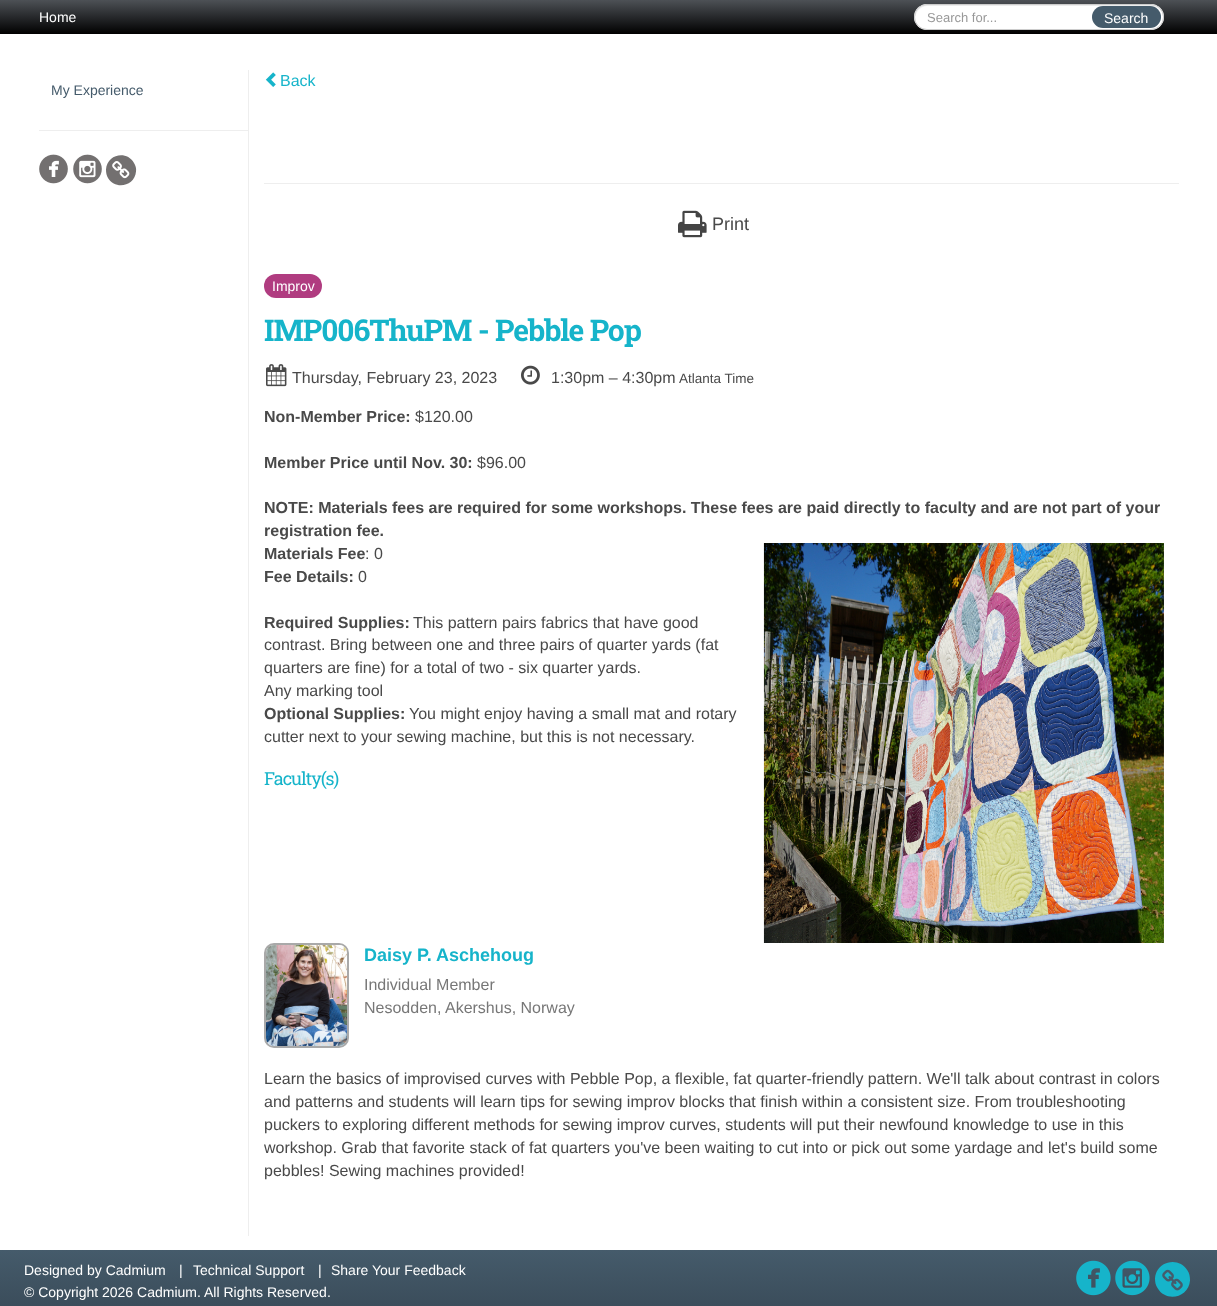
<svg xmlns="http://www.w3.org/2000/svg" width="1217" height="1306" viewBox="0 0 1217 1306">
  <defs>
    <linearGradient id="g1" gradientUnits="userSpaceOnUse" x1="609" y1="0" x2="609" y2="34"><stop offset="0" stop-color="#4d5156"/><stop offset="1" stop-color="#000"/></linearGradient>
    <linearGradient id="g2" gradientUnits="userSpaceOnUse" x1="609" y1="1250" x2="609" y2="1306"><stop offset="0" stop-color="#455b6b"/><stop offset="1" stop-color="#3b4d5b"/></linearGradient>
  </defs>
  <rect width="100%" height="100%" fill="#fff"/>
  <path d="M0 0h1217v34H0z" fill="url(#g1)"/>
  <rect x="914" y="4" width="250" height="26" rx="13" fill="#fff"/>
  <path d="M927 6H1151C1159 6 1163 12 1163 17C1163 11 1158 5 1151 5H927C920 5 914 12 915 19C915 13 920 6 927 6Z" fill="#ececec"/>
  <rect x="914.5" y="4.5" width="249" height="25" rx="12.5" fill="none" stroke="#ccc"/>
  <rect x="1092" y="6" width="69" height="22" rx="11" fill="#455b6b"/>
  <path d="M248 70h1v1166H248z" fill="#eee"/>
  <path d="M39 130h209v1H39z" fill="#eee"/>
  <image x="39" y="154" width="29" height="30" href="img/1.png"/>
  <image x="73" y="154" width="29" height="30" href="img/2.png"/>
  <path d="M134 163C135.5 165.5 136.5 168.5 136 171.5C135 186 115.5 190.5 108 178C106.5 175.5 106 172.5 106 169.5C107 154.5 126.5 150 134 163Z" fill="#737070"/>
  <image x="112" y="161" width="18" height="18" href="img/3.png"/>
  <image x="265" y="72" width="11" height="15" href="img/4.png"/>
  <path d="M264 183h915v1H264z" fill="#eee"/>
  <image x="678" y="210" width="29" height="28" href="img/5.png"/>
  <rect x="264" y="274" width="58" height="24" rx="12" fill="#b03c80"/>
  <image x="266" y="364" width="21" height="23" href="img/6.png"/>
  <image x="521" y="365" width="19" height="20" href="img/7.png"/>
  <image x="763" y="543" width="401" height="400" href="img/8.png"/>
  <rect x="265" y="944" width="83" height="103" rx="9" fill="none" stroke="#a9a9a9" stroke-width="2"/>
  <image x="266" y="945" width="81" height="101" href="img/9.png"/>
  <path d="M0 1250h1217v56H0z" fill="url(#g2)"/>
  <image x="1076" y="1260" width="35" height="36" href="img/10.png"/>
  <image x="1115" y="1260" width="35" height="36" href="img/11.png"/>
  <path d="M1187.5 1270.5C1189.5 1273.5 1190 1277 1190 1280.5C1189 1297.5 1166 1303 1157.5 1288C1155.5 1285 1155 1282 1155 1278.5C1156 1261 1179 1256 1187.5 1270.5Z" fill="#16b4ca"/>
  <image x="1162" y="1269" width="21" height="22" href="img/12.png"/>
  <text x="39" y="22" font-family="Liberation Sans" font-size="14" fill="#fff">Home</text>
  <text x="927" y="22" font-family="Liberation Sans" font-size="13" fill="#999">Search for...</text>
  <text x="1104" y="23" font-family="Liberation Sans" font-size="14" fill="#fff">Search</text>
  <text x="51" y="95" font-family="Liberation Sans" font-size="14" fill="#455b6b">My Experience</text>
  <text x="280" y="86" font-family="Liberation Sans" font-size="16" fill="#16b4ca">Back</text>
  <text x="712" y="230" font-family="Liberation Sans" font-size="18" fill="#494949">Print</text>
  <text x="272" y="291" font-family="Liberation Sans" font-size="14" fill="#fff">Improv</text>
  <text x="264" y="341" font-family="Roboto Slab" font-size="30" font-weight="bold" letter-spacing="-1" fill="#16b4ca">IMP006ThuPM - Pebble Pop</text>
  <g font-family="Liberation Sans" font-size="16" fill="#494949">
    <text x="292" y="383">Thursday, February 23, 2023</text>
    <text x="551" y="383">1:30pm – 4:30pm</text>
  </g>
  <text x="679" y="383" font-family="Liberation Sans" font-size="13.5" fill="#494949">Atlanta Time</text>
  <text x="264" y="422" font-family="Liberation Sans" font-size="16" font-weight="bold" fill="#494949">Non-Member Price:</text>
  <text x="415" y="422" font-family="Liberation Sans" font-size="16" fill="#494949">$120.00</text>
  <text x="264" y="468" font-family="Liberation Sans" font-size="16" font-weight="bold" fill="#494949">Member Price until Nov. 30:</text>
  <text x="477" y="468" font-family="Liberation Sans" font-size="16" fill="#494949">$96.00</text>
  <g font-family="Liberation Sans" font-size="16" font-weight="bold" fill="#494949">
    <text x="264" y="513">NOTE: Materials fees are required for some workshops. These fees are paid directly to faculty and are not part of your</text>
    <text x="264" y="536">registration fee.</text>
    <text x="264" y="559">Materials Fee</text>
  </g>
  <text x="365" y="559" font-family="Liberation Sans" font-size="16" fill="#494949">: 0</text>
  <text x="264" y="582" font-family="Liberation Sans" font-size="16" font-weight="bold" fill="#494949">Fee Details:</text>
  <text x="358" y="582" font-family="Liberation Sans" font-size="16" fill="#494949">0</text>
  <text x="264" y="628" font-family="Liberation Sans" font-size="16" font-weight="bold" fill="#494949">Required Supplies:</text>
  <g font-family="Liberation Sans" font-size="16" fill="#494949">
    <text x="413" y="628">This pattern pairs fabrics that have good</text>
    <text x="264" y="650">contrast. Bring between one and three pairs of quarter yards (fat</text>
    <text x="264" y="673">quarters are fine) for a total of two - six quarter yards.</text>
    <text x="264" y="696">Any marking tool</text>
  </g>
  <text x="264" y="719" font-family="Liberation Sans" font-size="16" font-weight="bold" fill="#494949">Optional Supplies:</text>
  <g font-family="Liberation Sans" font-size="16" fill="#494949">
    <text x="409" y="719">You might enjoy having a small mat and rotary</text>
    <text x="264" y="742">cutter next to your sewing machine, but this is not necessary.</text>
  </g>
  <text x="264" y="785" font-family="Roboto Slab" font-size="18" letter-spacing="-1" fill="#16b4ca">Faculty(s)</text>
  <text x="364" y="961" font-family="Liberation Sans" font-size="18" font-weight="bold" fill="#16b4ca">Daisy P. Aschehoug</text>
  <g font-family="Liberation Sans" font-size="16" fill="#777">
    <text x="364" y="990">Individual Member</text>
    <text x="364" y="1013">Nesodden, Akershus, Norway</text>
  </g>
  <g font-family="Liberation Sans" font-size="16" fill="#494949">
    <text x="264" y="1084">Learn the basics of improvised curves with Pebble Pop, a flexible, fat quarter-friendly pattern. We'll talk about contrast in colors</text>
    <text x="264" y="1107">and patterns and students will learn tips for sewing improv blocks that finish within a consistent size. From troubleshooting</text>
    <text x="264" y="1130">puckers to exploring different methods for sewing improv curves, students will put their newfound knowledge to use in this</text>
    <text x="264" y="1153">workshop. Grab that favorite stack of fat quarters you've been waiting to cut into or pick out some yardage and let's build some</text>
    <text x="264" y="1176">pebbles! Sewing machines provided!</text>
  </g>
  <g font-family="Liberation Sans" font-size="14" fill="#fff">
    <text x="24" y="1275">Designed by Cadmium</text>
    <text x="179" y="1275">|</text>
    <text x="193" y="1275">Technical Support</text>
    <text x="318" y="1275">|</text>
    <text x="331" y="1275">Share Your Feedback</text>
    <text x="24" y="1297">© Copyright 2026 Cadmium. All Rights Reserved.</text>
  </g>
</svg>
